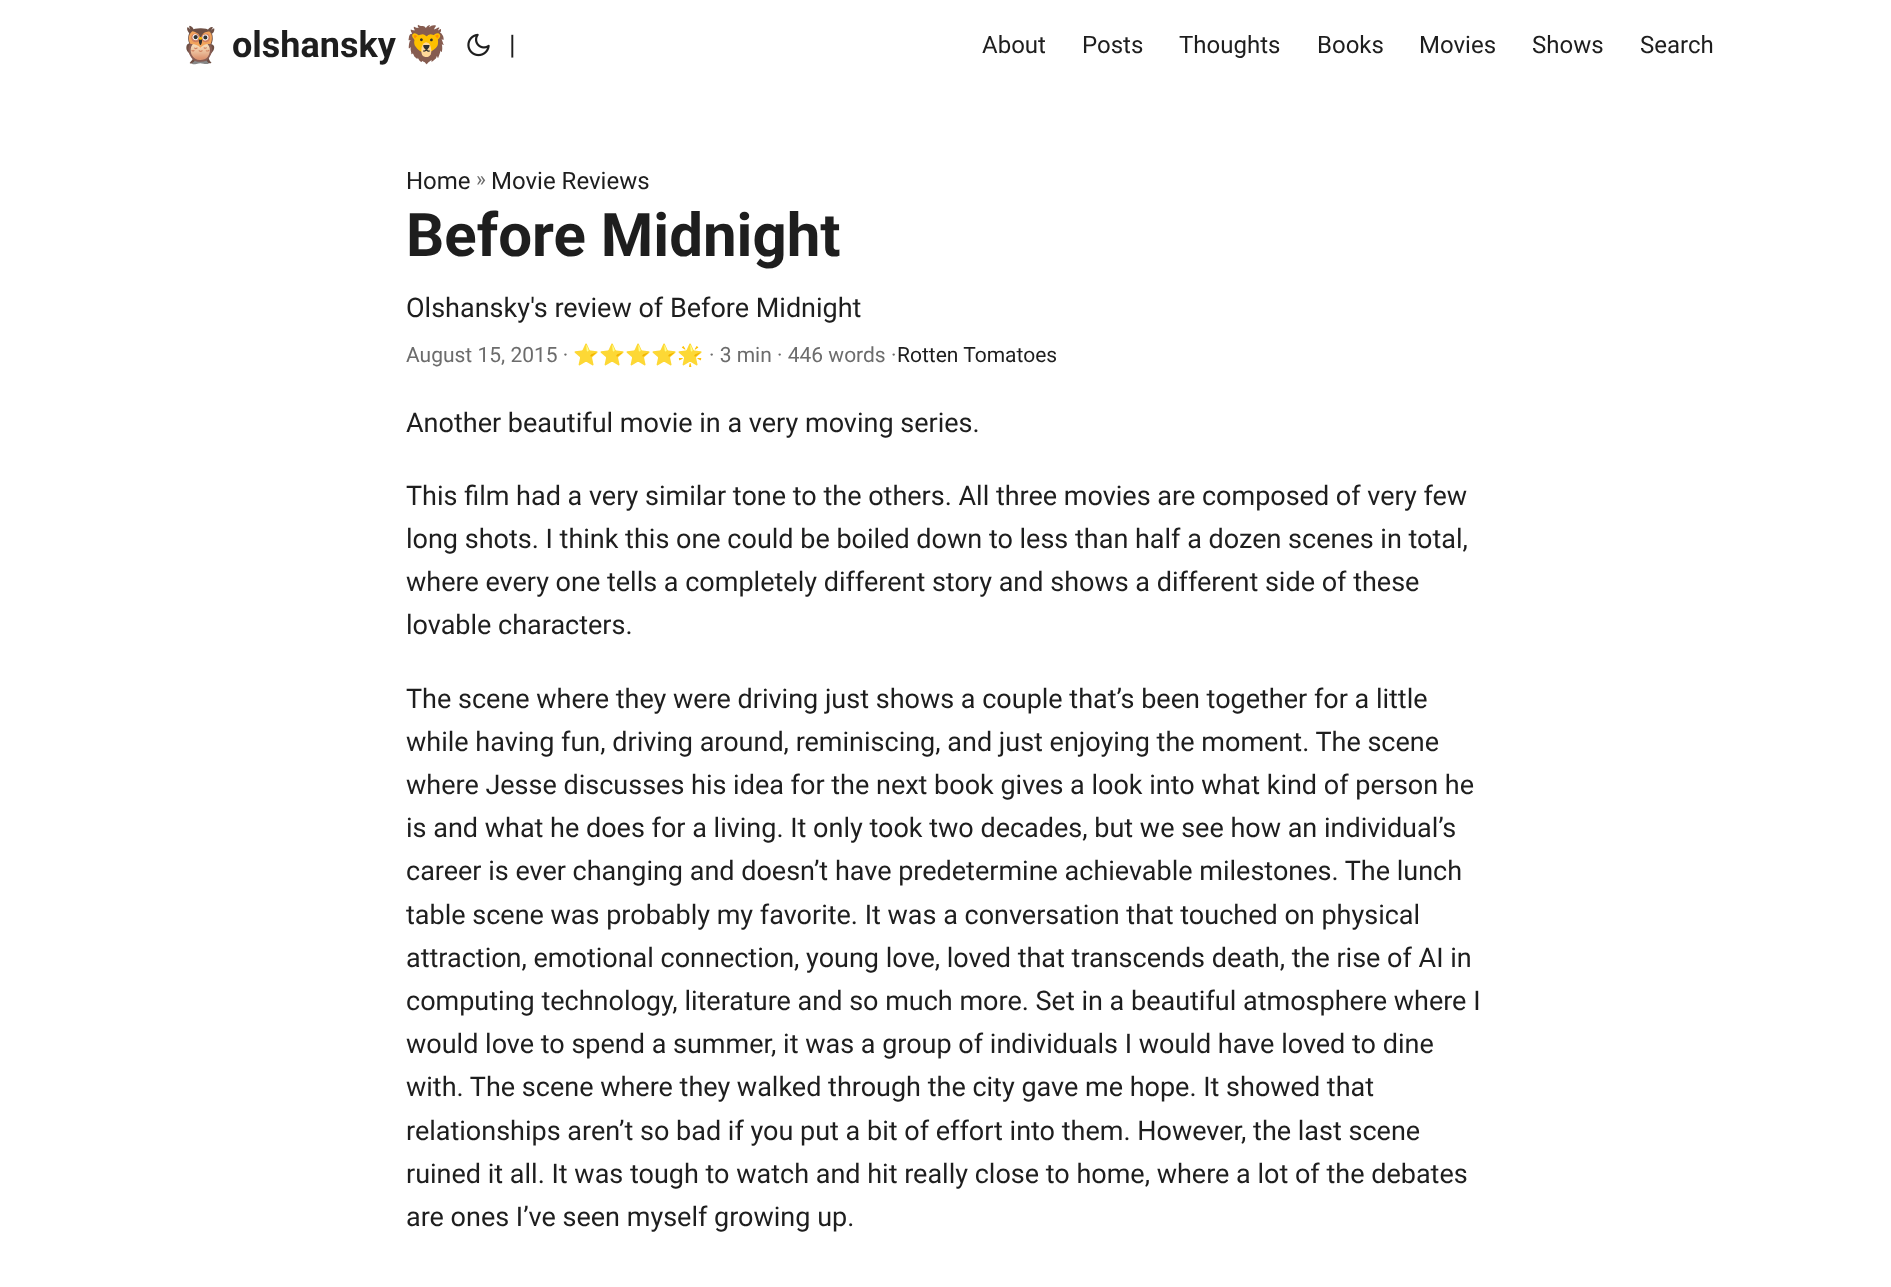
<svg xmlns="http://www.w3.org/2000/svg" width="1891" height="1287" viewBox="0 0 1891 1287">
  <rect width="100%" height="100%" fill="#fff"/>
  <image x="467" y="33" width="23" height="24" href="img/1.png"/>
  <text x="178" y="57" font-family="Noto Color Emoji" font-size="36" font-weight="bold" fill="#1e1e1e">🦉</text>
  <text x="232" y="57" font-family="Roboto" font-size="36" font-weight="bold" fill="#1e1e1e">olshansky</text>
  <text x="404" y="57" font-family="Noto Color Emoji" font-size="36" font-weight="bold" fill="#1e1e1e">🦁</text>
  <text x="509" y="54" font-family="Roboto" font-size="27" fill="#1e1e1e">|</text>
  <g font-family="Roboto" font-size="24" fill="#1e1e1e">
    <text x="982" y="53">About</text>
    <text x="1082" y="53">Posts</text>
    <text x="1179" y="53">Thoughts</text>
    <text x="1317" y="53">Books</text>
    <text x="1419" y="53">Movies</text>
    <text x="1532" y="53">Shows</text>
    <text x="1640" y="53">Search</text>
    <text x="406" y="189">Home</text>
  </g>
  <text x="476" y="186" font-family="Roboto" font-size="21" fill="#6c6c6c">»</text>
  <text x="491" y="189" font-family="Roboto" font-size="24" fill="#1e1e1e">Movie Reviews</text>
  <text x="406" y="256" font-family="Roboto" font-size="60" font-weight="bold" fill="#1e1e1e">Before Midnight</text>
  <text x="406" y="317" font-family="Roboto" font-size="27" fill="#1e1e1e">Olshansky's review of Before Midnight</text>
  <text x="406" y="362" font-family="Roboto" font-size="21" fill="#6c6c6c">August 15, 2015 ·</text>
  <text x="573" y="362" font-family="Noto Color Emoji" font-size="21" fill="#6c6c6c">⭐⭐⭐⭐🌟</text>
  <text x="709" y="362" font-family="Roboto" font-size="21" fill="#6c6c6c">· 3 min · 446 words ·</text>
  <text x="897" y="362" font-family="Roboto" font-size="21" fill="#1e1e1e">Rotten Tomatoes</text>
  <g font-family="Roboto" font-size="27" fill="#1e1e1e">
    <text x="406" y="432">Another beautiful movie in a very moving series.</text>
    <text x="406" y="505">This film had a very similar tone to the others. All three movies are composed of very few</text>
    <text x="406" y="548">long shots. I think this one could be boiled down to less than half a dozen scenes in total,</text>
    <text x="406" y="591">where every one tells a completely different story and shows a different side of these</text>
    <text x="406" y="634">lovable characters.</text>
    <text x="406" y="708">The scene where they were driving just shows a couple that’s been together for a little</text>
    <text x="406" y="751">while having fun, driving around, reminiscing, and just enjoying the moment. The scene</text>
    <text x="406" y="794">where Jesse discusses his idea for the next book gives a look into what kind of person he</text>
    <text x="406" y="837">is and what he does for a living. It only took two decades, but we see how an individual’s</text>
    <text x="406" y="880">career is ever changing and doesn’t have predetermine achievable milestones. The lunch</text>
    <text x="406" y="924">table scene was probably my favorite. It was a conversation that touched on physical</text>
    <text x="406" y="967">attraction, emotional connection, young love, loved that transcends death, the rise of AI in</text>
    <text x="406" y="1010">computing technology, literature and so much more. Set in a beautiful atmosphere where I</text>
    <text x="406" y="1053">would love to spend a summer, it was a group of individuals I would have loved to dine</text>
    <text x="406" y="1096">with. The scene where they walked through the city gave me hope. It showed that</text>
    <text x="406" y="1140">relationships aren’t so bad if you put a bit of effort into them. However, the last scene</text>
    <text x="406" y="1183">ruined it all. It was tough to watch and hit really close to home, where a lot of the debates</text>
    <text x="406" y="1226">are ones I’ve seen myself growing up.</text>
  </g>
</svg>
